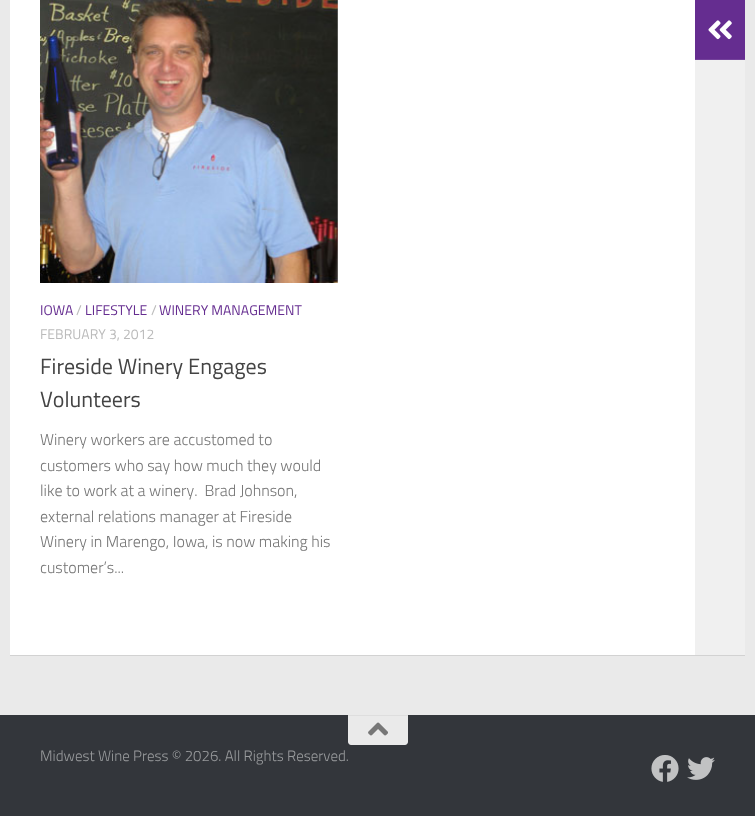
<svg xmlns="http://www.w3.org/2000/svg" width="755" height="816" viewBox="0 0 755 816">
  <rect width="100%" height="100%" fill="#eaeaea"/>
  <path d="M10 -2h735v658H10z" fill="#0000001a" filter="blur(0.5px)"/>
  <path d="M10 0h685v655H10z" fill="#fff"/>
  <path d="M695 0h50v59H695z" fill="#652d90"/>
  <path d="M695 59h50v1H695z" fill="#74429b"/>
  <image x="708" y="20" width="24" height="20" href="img/1.png"/>
  <image x="40" y="0" width="298" height="283" href="img/2.png"/>
  <path d="M695 60h50v595H695z" fill="#f0f0f0"/>
  <path d="M0 715h755v101H0z" fill="#33363b"/>
  <path d="M348 715H408V742C408 743.5 406.5 745 405 745H351C349.5 745 348 743.5 348 742Z" fill="#eaeaea"/>
  <path d="M348 715h60v1H348z" fill="#dedede"/>
  <image x="368" y="722" width="20" height="14" href="img/3.png"/>
  <image x="651" y="755" width="28" height="27" href="img/4.png"/>
  <image x="687" y="757" width="28" height="23" href="img/5.png"/>
  <text x="40" y="315" font-family="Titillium" font-size="14" fill="#652d90">IOWA</text>
  <text x="76" y="315" font-family="Titillium" font-size="14" fill="#bbb">/</text>
  <text x="85" y="315" font-family="Titillium" font-size="14" fill="#652d90">LIFESTYLE</text>
  <text x="151" y="315" font-family="Titillium" font-size="14" fill="#bbb">/</text>
  <text x="159" y="315" font-family="Titillium" font-size="14" fill="#652d90">WINERY MANAGEMENT</text>
  <text x="40" y="339" font-family="Titillium" font-size="14" fill="#bbb">FEBRUARY 3, 2012</text>
  <g font-family="Titillium" font-size="22" fill="#444">
    <text x="40" y="374">Fireside Winery Engages</text>
    <text x="40" y="407">Volunteers</text>
  </g>
  <g font-family="Titillium" font-size="16" font-weight="300" fill="#767676">
    <text x="40" y="445">Winery workers are accustomed to</text>
    <text x="40" y="471">customers who say how much they would</text>
    <text x="40" y="496" xml:space="preserve">like to work at a winery.  Brad Johnson,</text>
    <text x="40" y="522">external relations manager at Fireside</text>
    <text x="40" y="547">Winery in Marengo, Iowa, is now making his</text>
    <text x="40" y="573">customer’s...</text>
  </g>
  <text x="40" y="761" font-family="Titillium" font-size="15" font-weight="300" fill="#999b9d">Midwest Wine Press © 2026. All Rights Reserved.</text>
</svg>
